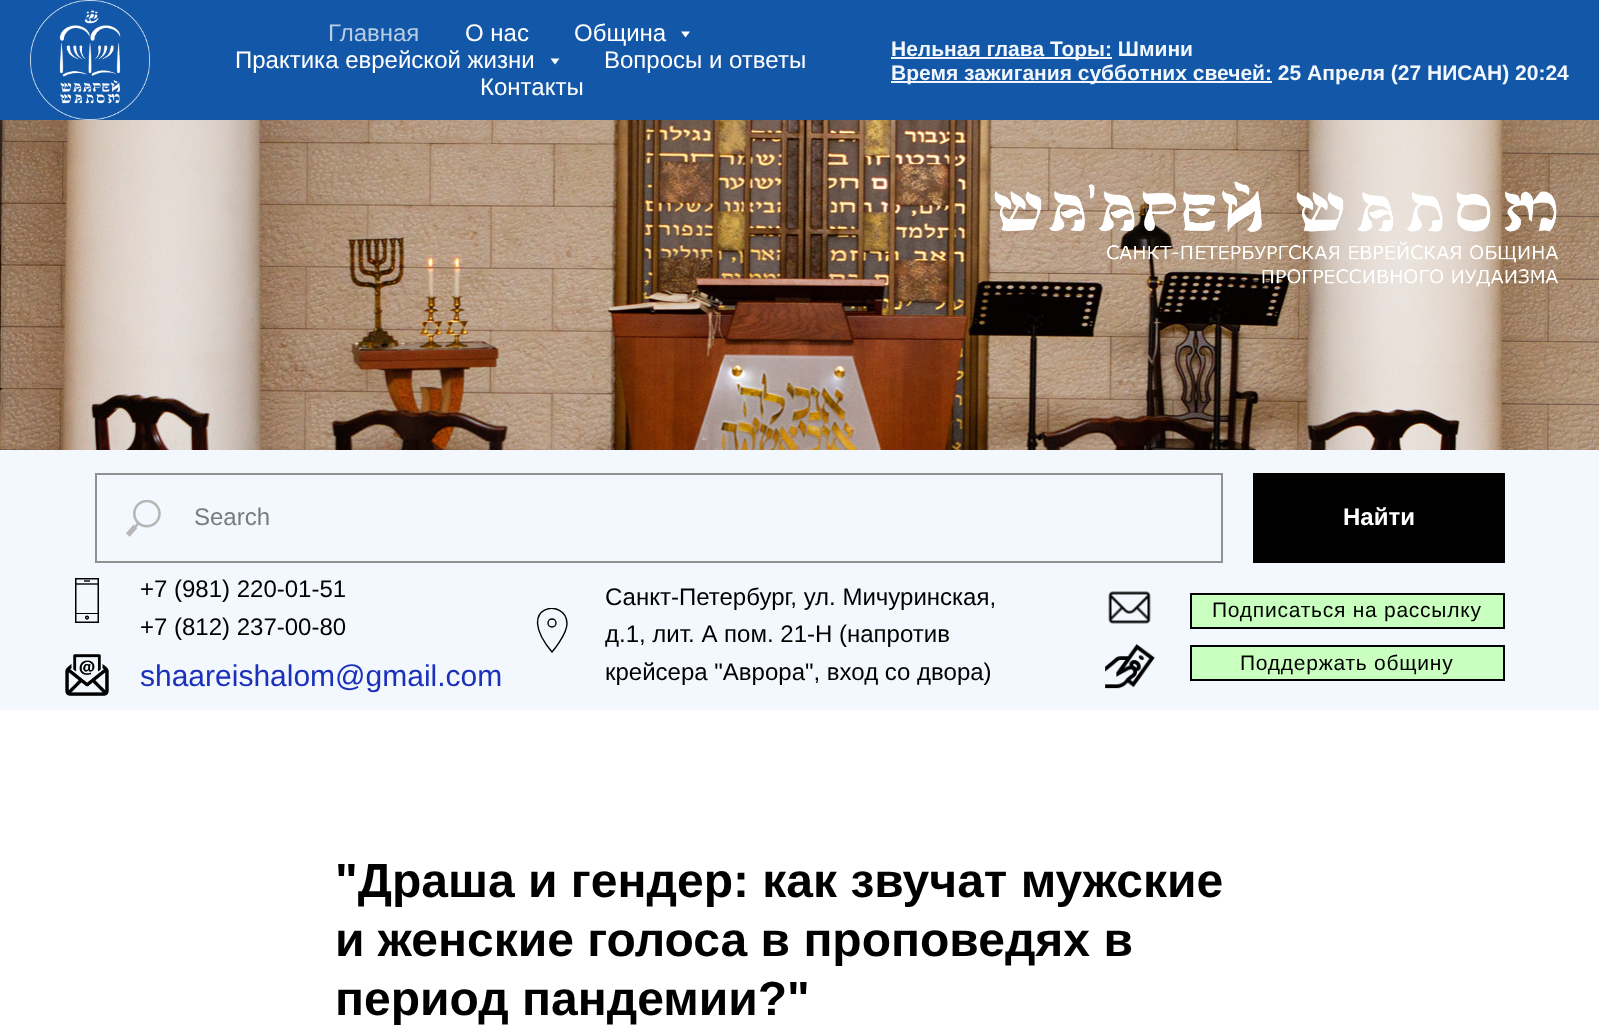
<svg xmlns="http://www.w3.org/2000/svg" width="1599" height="1026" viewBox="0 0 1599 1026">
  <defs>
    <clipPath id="clip1"><path d="M530 608h45v45H530z"/></clipPath>
  </defs>
  <rect width="100%" height="100%" fill="#fff"/>
  <path d="M0 0h1599v120H0z" fill="#1357a8"/>
  <image x="30" y="0" width="120" height="120" href="img/1.png"/>
  <path d="M681 31.5H690L685.5 37.5Z" fill="#fff"/>
  <path d="M550.5 58.5H559.5L555 64.5Z" fill="#fff"/>
  <path d="M891 57h221v2H891z" fill="#f2f8fd"/>
  <path d="M891 81h381v2H891z" fill="#f2f8fd"/>
  <image x="0" y="120" width="1599" height="330" href="img/2.png"/>
  <image x="994" y="181" width="564" height="106" href="img/3.png"/>
  <path d="M0 450h1599v260H0z" fill="#f2f8fd"/>
  <path d="M96 474h1126v88H96z" fill="none" stroke="#919191" stroke-width="2"/>
  <image x="126" y="500" width="35" height="37" href="img/4.png"/>
  <path d="M1253 473h252v90H1253z" fill="#000"/>
  <path d="M75.75 578.75h22.5v43.5H75.75z" fill="none" stroke="#000" stroke-width="1.5"/>
  <path d="M84 581H90" fill="none" stroke="#000" stroke-width="1.4"/>
  <path d="M76 613h22v1H76z" fill="#000"/>
  <path d="M76 584H98" fill="none" stroke="#000" stroke-width="1.4"/>
  <circle cx="87" cy="617.6" r="1.4" fill="none" stroke="#000" stroke-width="1.4"/>
  <circle cx="552" cy="623" r="4" fill="none" stroke="#000" stroke-width="1.4"/>
  <g clip-path="url(#clip1)">
    <path d="M567 623.5C566.5 597 512.5 605 552 652C552 652 567 634.5 567 623.5Z" fill="none" stroke="#000" stroke-width="1.4"/>
  </g>
  <image x="1108" y="591" width="43" height="33" href="img/5.png"/>
  <path d="M1191 594h313v34H1191z" fill="#c9ffbf" stroke="#000" stroke-width="2"/>
  <image x="65" y="654" width="44" height="42" href="img/6.png"/>
  <image x="1105" y="644" width="50" height="45" href="img/7.png"/>
  <path d="M1191 646h313v34H1191z" fill="#c9ffbf" stroke="#000" stroke-width="2"/>
  <text x="328" y="41" font-family="Liberation Sans" font-size="24" fill="#b8cde5">Главная</text>
  <g font-family="Liberation Sans" font-size="24" fill="#fff">
    <text x="465" y="41">О нас</text>
    <text x="574" y="41">Община</text>
    <text x="235" y="68">Практика еврейской жизни</text>
    <text x="604" y="68">Вопросы и ответы</text>
    <text x="480" y="95">Контакты</text>
  </g>
  <g font-family="Liberation Sans" font-size="21" font-weight="bold" fill="#f2f8fd">
    <text x="891" y="56">Нельная глава Торы: Шмини</text>
    <text x="891" y="80">Время зажигания субботних свечей: 25 Апреля (27 НИСАН) 20:24</text>
  </g>
  <text x="194" y="525" font-family="Liberation Sans" font-size="24" fill="#797c7f">Search</text>
  <text x="1343" y="525" font-family="Liberation Sans" font-size="24" font-weight="bold" fill="#fff">Найти</text>
  <g font-family="Liberation Sans" font-size="24" fill="#000">
    <text x="140" y="597">+7 (981) 220-01-51</text>
    <text x="140" y="635">+7 (812) 237-00-80</text>
    <text x="605" y="605">Санкт-Петербург, ул. Мичуринская,</text>
    <text x="605" y="642">д.1, лит. А пом. 21-Н (напротив</text>
    <text x="605" y="680">крейсера "Аврора", вход со двора)</text>
  </g>
  <text x="1212" y="617" font-family="Liberation Sans" font-size="21" letter-spacing="0.75" fill="#000">Подписаться на рассылку</text>
  <text x="140" y="686" font-family="Liberation Sans" font-size="30" fill="#1b30bb">shaareishalom@gmail.com</text>
  <text x="1240" y="670" font-family="Liberation Sans" font-size="21" letter-spacing="0.75" fill="#000">Поддержать общину</text>
  <g font-family="Liberation Sans" font-size="48" font-weight="bold" fill="#000">
    <text x="335" y="897">"Драша и гендер: как звучат мужские</text>
    <text x="335" y="956">и женские голоса в проповедях в</text>
    <text x="335" y="1015">период пандемии?"</text>
  </g>
</svg>
